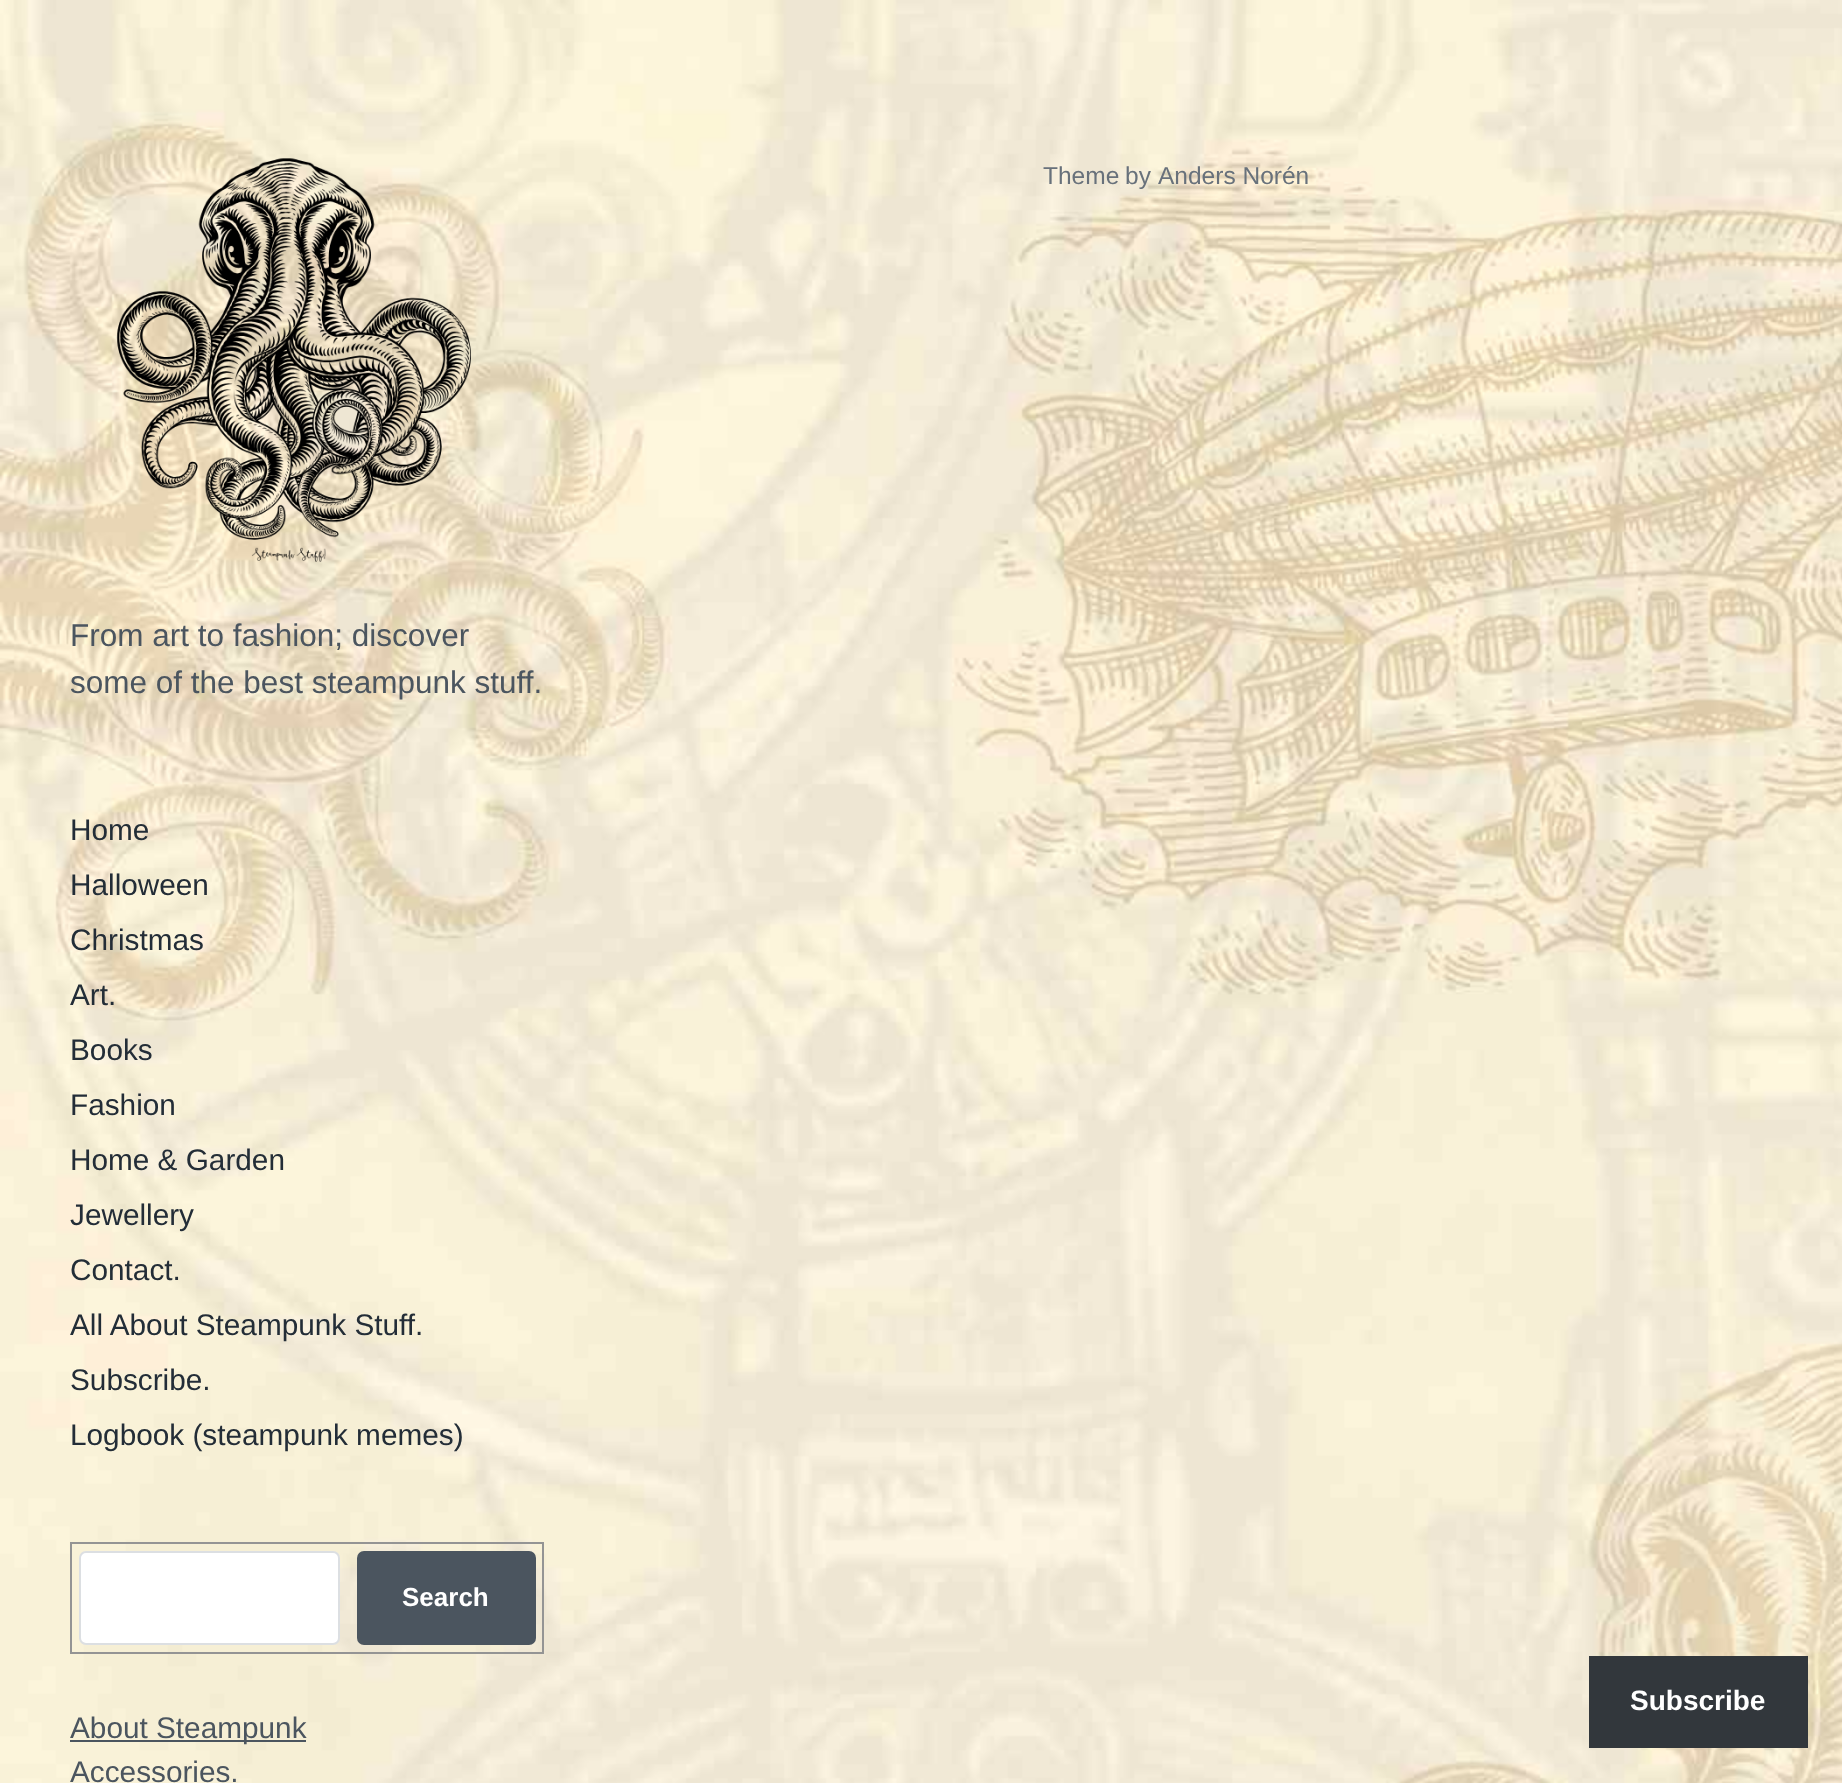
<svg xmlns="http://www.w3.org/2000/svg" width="1842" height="1783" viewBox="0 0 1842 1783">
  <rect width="100%" height="100%" fill="#fff"/>
  <image x="0" y="0" width="1842" height="1783" href="img/1.png"/>
  <image x="116" y="158" width="355" height="404" href="img/2.png"/>
  <path d="M71 1543h472v110H71z" fill="none" stroke="#949494" stroke-width="2"/>
  <rect x="80" y="1552" width="259" height="92" rx="6" fill="#fff" stroke="#dcdfe2" stroke-width="2"/>
  <rect x="357" y="1551" width="179" height="94" rx="7" fill="#4b555f"/>
  <path d="M70 1740h236v2H70z" fill="#4b555f"/>
  <path d="M1589 1656h219v92H1589z" fill="#32373c"/>
  <g font-family="Liberation Sans" font-size="24.5" fill="#68717b">
    <text x="1043" y="184" word-spacing="-1">Theme by</text>
    <text x="1158" y="184">Anders Norén</text>
  </g>
  <g font-family="Liberation Sans" font-size="31.5" fill="#4b555f">
    <text x="70" y="646">From art to fashion; discover</text>
    <text x="70" y="693">some of the best steampunk stuff.</text>
  </g>
  <g font-family="Liberation Sans" font-size="29.75" fill="#232d37">
    <text x="70" y="840">Home</text>
    <text x="70" y="895">Halloween</text>
    <text x="70" y="950">Christmas</text>
    <text x="70" y="1005">Art.</text>
    <text x="70" y="1060">Books</text>
    <text x="70" y="1115">Fashion</text>
    <text x="70" y="1170">Home &amp; Garden</text>
    <text x="70" y="1225">Jewellery</text>
    <text x="70" y="1280">Contact.</text>
    <text x="70" y="1335">All About Steampunk Stuff.</text>
    <text x="70" y="1390">Subscribe.</text>
    <text x="70" y="1445">Logbook (steampunk memes)</text>
  </g>
  <text x="402" y="1606" font-family="Liberation Sans" font-size="26" font-weight="bold" fill="#fff">Search</text>
  <g font-family="Liberation Sans" font-size="29.75" fill="#4b555f">
    <text x="70" y="1738">About Steampunk</text>
    <text x="70" y="1782">Accessories.</text>
  </g>
  <text x="1630" y="1710" font-family="Liberation Sans" font-size="28" font-weight="bold" fill="#fff">Subscribe</text>
</svg>
